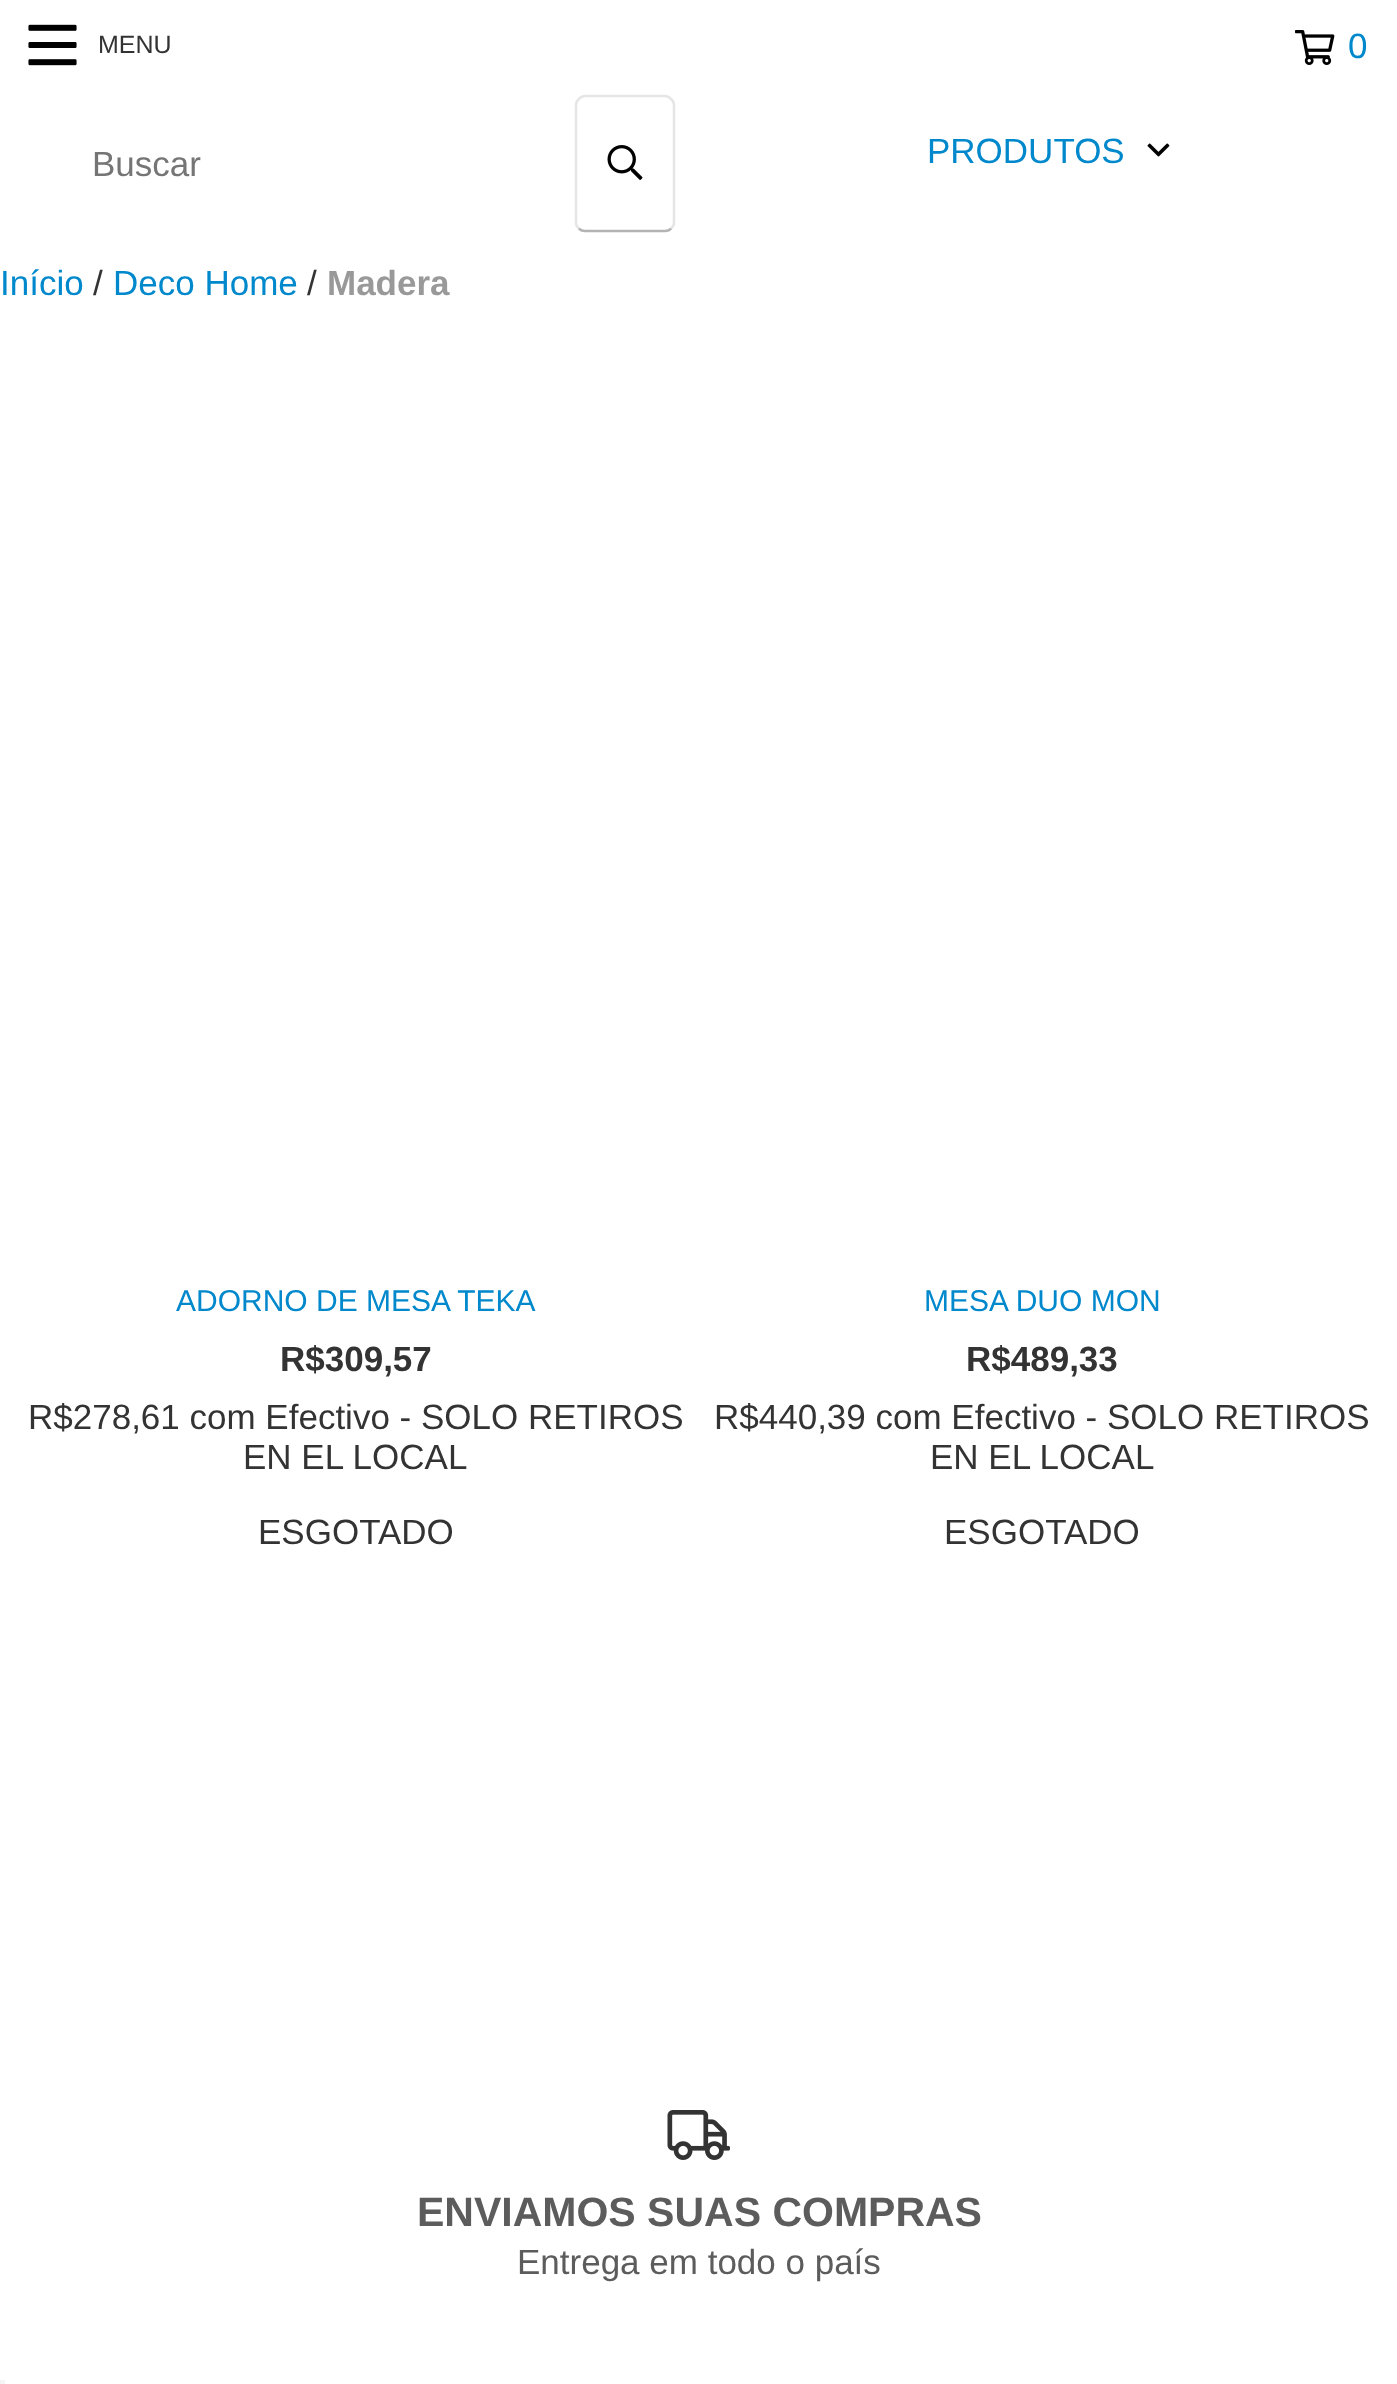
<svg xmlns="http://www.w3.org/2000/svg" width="1397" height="2384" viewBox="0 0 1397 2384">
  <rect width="100%" height="100%" fill="#fff"/>
  <image x="28" y="24" width="49" height="42" href="img/1.png"/>
  <image x="1295" y="30" width="40" height="35" href="img/2.png"/>
  <path d="M671 228.5C669.5 230.5 667.5 231 665 231H585C582.5 231 580.5 230.5 579 228.5" fill="none" stroke="#b3b3b3" stroke-width="2.5"/>
  <path d="M579 228.5C577 227 576 225 576 222.5V105C576 102.5 577 100.5 579 99C580.5 97 582.5 96 585 96H665C667.5 96 669.5 97 671 99C673 100.5 674 102.5 674 105V222.5C674 225 673 227 671 228.5" fill="none" stroke="#0000001a" stroke-width="2.5"/>
  <image x="607" y="145" width="36" height="35" href="img/3.png"/>
  <image x="1147" y="143" width="23" height="14" href="img/4.png"/>
  <image x="667" y="2110" width="63" height="50" href="img/5.png"/>
  <path d="M0 2380h5v4H0z" fill="#f5f5f5"/>
  <text x="98" y="53" font-family="Liberation Sans" font-size="25" fill="#333">MENU</text>
  <text x="1348" y="58" font-family="Liberation Sans" font-size="35" letter-spacing="2" fill="#08c">0</text>
  <text x="92" y="176" font-family="Liberation Sans" font-size="35" fill="#757575">Buscar</text>
  <g font-family="Liberation Sans" font-size="35" fill="#08c">
    <text x="927" y="163">PRODUTOS</text>
    <text x="0" y="295">Início</text>
  </g>
  <text x="93" y="295" font-family="Liberation Sans" font-size="35" fill="#333">/</text>
  <text x="113" y="295" font-family="Liberation Sans" font-size="35" fill="#08c">Deco Home</text>
  <text x="307" y="295" font-family="Liberation Sans" font-size="35" fill="#333">/</text>
  <text x="327" y="295" font-family="Liberation Sans" font-size="35" font-weight="bold" fill="#999">Madera</text>
  <text x="176" y="1311" font-family="Liberation Sans" font-size="30" fill="#08c">ADORNO DE MESA TEKA</text>
  <text x="280" y="1371" font-family="Liberation Sans" font-size="35" font-weight="bold" fill="#333">R$309,57</text>
  <g font-family="Liberation Sans" font-size="35" fill="#333">
    <text x="28" y="1429">R$278,61 com Efectivo - SOLO RETIROS</text>
    <text x="243" y="1469">EN EL LOCAL</text>
    <text x="258" y="1544">ESGOTADO</text>
  </g>
  <text x="924" y="1311" font-family="Liberation Sans" font-size="30" fill="#08c">MESA DUO MON</text>
  <text x="966" y="1371" font-family="Liberation Sans" font-size="35" font-weight="bold" fill="#333">R$489,33</text>
  <g font-family="Liberation Sans" font-size="35" fill="#333">
    <text x="714" y="1429">R$440,39 com Efectivo - SOLO RETIROS</text>
    <text x="930" y="1469">EN EL LOCAL</text>
    <text x="944" y="1544">ESGOTADO</text>
  </g>
  <text x="417" y="2226" font-family="Liberation Sans" font-size="41" font-weight="bold" fill="#5c5c5c">ENVIAMOS SUAS COMPRAS</text>
  <text x="517" y="2274" font-family="Liberation Sans" font-size="35" fill="#5c5c5c">Entrega em todo o país</text>
</svg>
